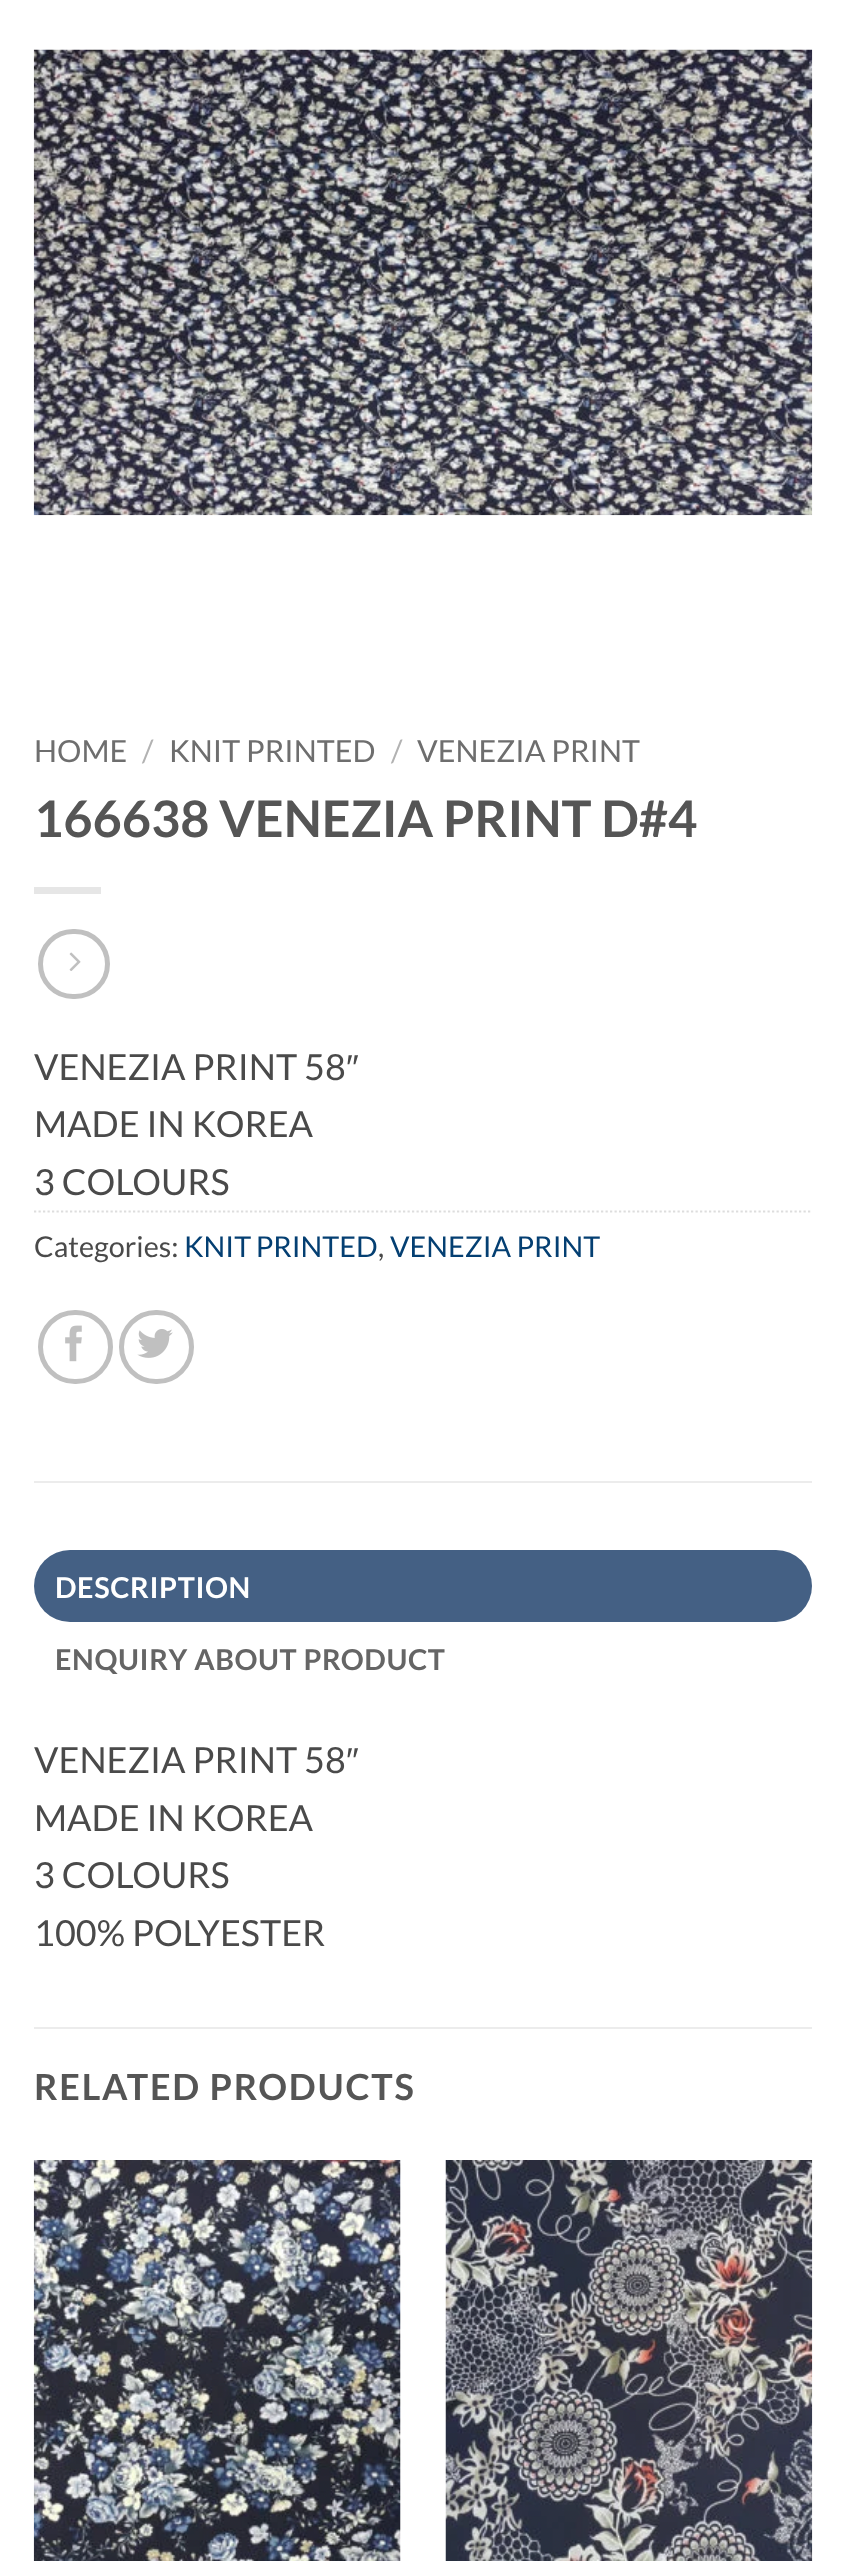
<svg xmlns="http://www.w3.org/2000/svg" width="845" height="2561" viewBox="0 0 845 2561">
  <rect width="100%" height="100%" fill="#fff"/>
  <image x="33" y="49" width="780" height="467" href="img/1.png"/>
  <path d="M34 887h67v7H34z" fill="#e6e6e6"/>
  <rect x="40.5" y="931.5" width="67" height="65" rx="32.5" fill="none" stroke="#c0c0c0" stroke-width="5"/>
  <image x="69" y="952" width="12" height="19" href="img/2.png"/>
  <path d="M34 1211.5H812" fill="none" stroke="#ddd" stroke-width="2.2" stroke-dasharray="2.25 2.25"/>
  <rect x="40.5" y="1312.5" width="70" height="69" rx="34.5" fill="none" stroke="#c0c0c0" stroke-width="5"/>
  <image x="65" y="1325" width="17" height="37" href="img/3.png"/>
  <rect x="121.5" y="1312.5" width="70" height="69" rx="34.5" fill="none" stroke="#c0c0c0" stroke-width="5"/>
  <image x="137" y="1329" width="36" height="29" href="img/4.png"/>
  <path d="M34 1481h778v2H34z" fill="#ececec"/>
  <rect x="34" y="1550" width="778" height="72" rx="36" fill="#446084"/>
  <path d="M34 2027h778v2H34z" fill="#ececec"/>
  <image x="33" y="2160" width="368" height="401" href="img/5.png"/>
  <image x="445" y="2160" width="368" height="401" href="img/6.png"/>
  <text x="34" y="762" font-family="Lato" font-size="30.5" fill="#6e6e6e">HOME</text>
  <text x="142" y="762" font-family="Lato" font-size="30.5" fill="#b2b2b2">/</text>
  <text x="169" y="762" font-family="Lato" font-size="30.5" fill="#6e6e6e">KNIT PRINTED</text>
  <text x="391" y="762" font-family="Lato" font-size="30.5" fill="#b2b2b2">/</text>
  <text x="417" y="762" font-family="Lato" font-size="30.5" fill="#6e6e6e">VENEZIA PRINT</text>
  <text x="34" y="837" font-family="Lato" font-size="50.4" font-weight="bold" fill="#555">166638 VENEZIA PRINT D#4</text>
  <text x="34" y="1080" font-family="Lato" font-size="36" fill="#4a4a4a">VENEZIA PRINT 58</text>
  <text x="346" y="1080" font-family="Liberation Sans" font-size="36" fill="#4a4a4a">″</text>
  <g font-family="Lato" font-size="36" fill="#4a4a4a">
    <text x="34" y="1137">MADE IN KOREA</text>
    <text x="34" y="1195">3 COLOURS</text>
  </g>
  <text x="34" y="1257" font-family="Lato" font-size="28.75" fill="#4a4a4a">Categories:</text>
  <text x="184" y="1257" word-spacing="-1" font-family="Lato" font-size="28.75" fill="#043f72">KNIT PRINTED</text>
  <text x="378" y="1257" font-family="Lato" font-size="28.75" fill="#4a4a4a">,</text>
  <text x="390" y="1257" font-family="Lato" font-size="28.75" fill="#043f72">VENEZIA PRINT</text>
  <text x="55" y="1598" font-family="Lato" font-size="28.75" font-weight="bold" letter-spacing="0.6" fill="#fff">DESCRIPTION</text>
  <text x="55" y="1670" font-family="Lato" font-size="28.75" font-weight="bold" letter-spacing="0.6" fill="#656565">ENQUIRY ABOUT PRODUCT</text>
  <text x="34" y="1773" font-family="Lato" font-size="36" fill="#4a4a4a">VENEZIA PRINT 58</text>
  <text x="346" y="1773" font-family="Liberation Sans" font-size="36" fill="#4a4a4a">″</text>
  <g font-family="Lato" font-size="36" fill="#4a4a4a">
    <text x="34" y="1831">MADE IN KOREA</text>
    <text x="34" y="1888">3 COLOURS</text>
    <text x="34" y="1946">100% POLYESTER</text>
  </g>
  <text x="34" y="2100" font-family="Lato" font-size="36" font-weight="bold" letter-spacing="1.75" fill="#555">RELATED PRODUCTS</text>
</svg>
